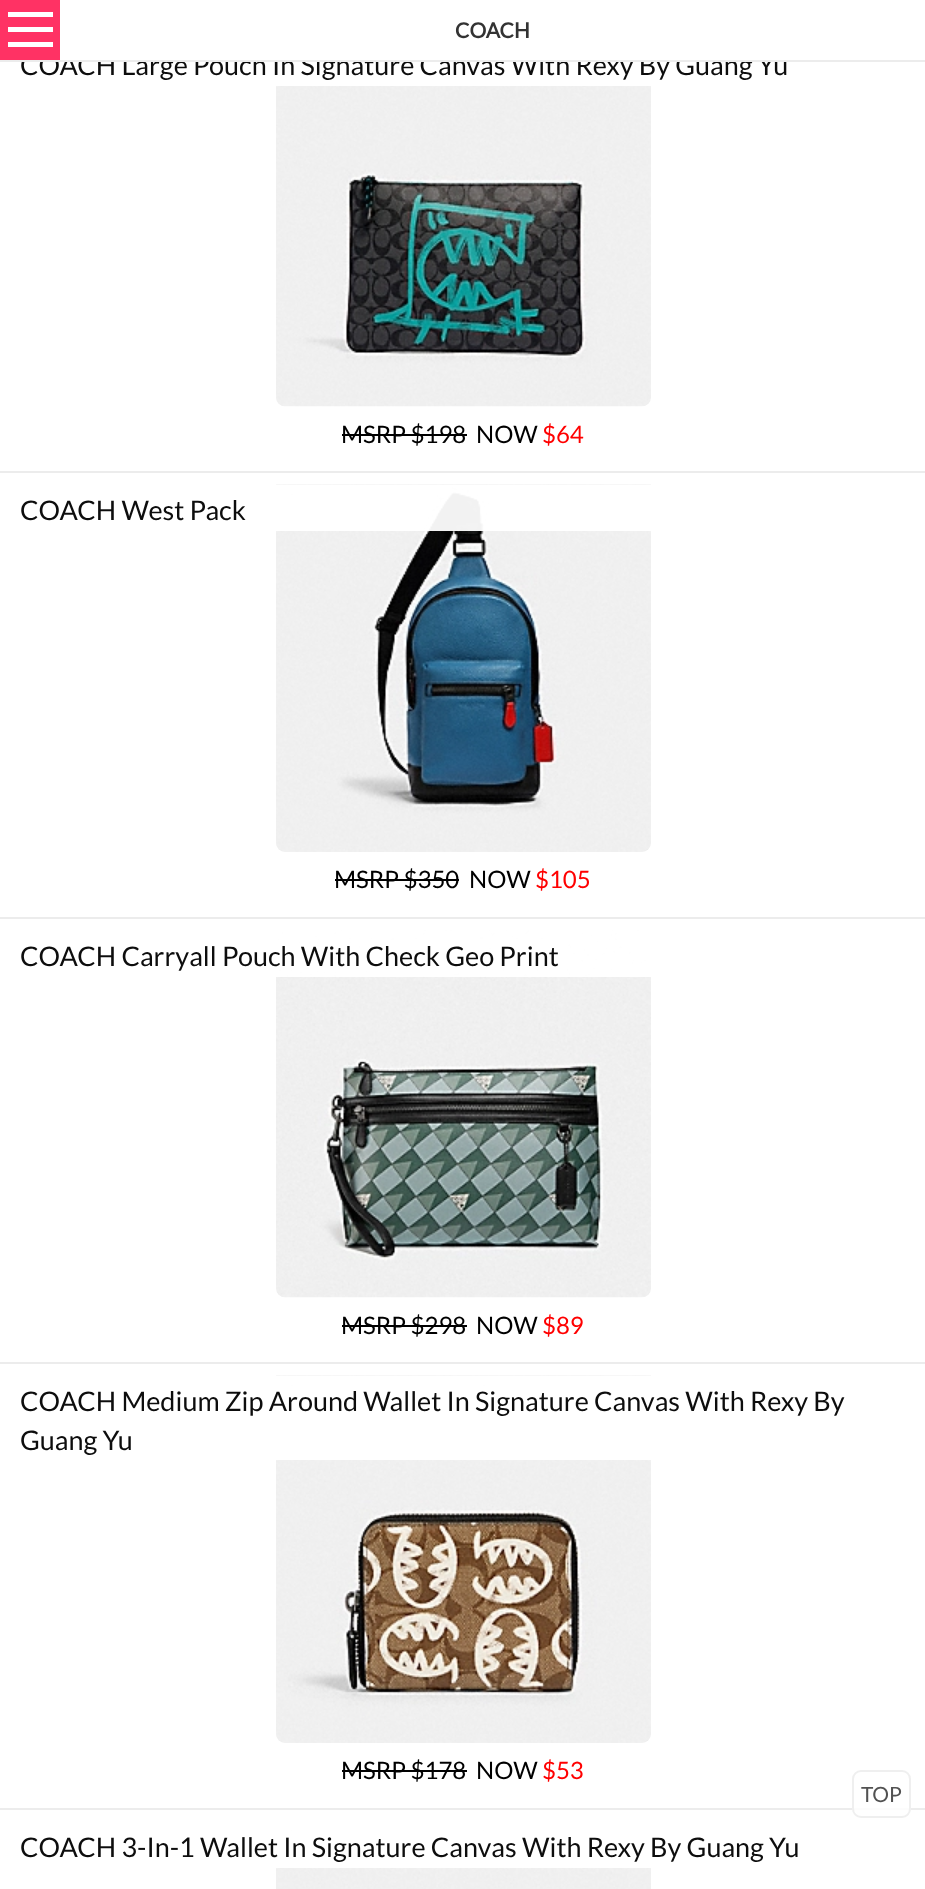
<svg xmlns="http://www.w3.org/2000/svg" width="925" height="1889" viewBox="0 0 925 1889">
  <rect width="100%" height="100%" fill="#fff"/>
  <image x="276" y="62" width="375" height="345" href="img/1.png"/>
  <path d="M276 62h375v24H276z" fill="#fffffff2"/>
  <path d="M342 434h125v2H342z" fill="#000"/>
  <path d="M0 471h925v2H0z" fill="#ececec"/>
  <image x="276" y="484" width="375" height="368" href="img/2.png"/>
  <path d="M276 485h375v46H276z" fill="#fffffff2"/>
  <path d="M335 879h124v2H335z" fill="#000"/>
  <path d="M0 917h925v2H0z" fill="#ececec"/>
  <image x="276" y="930" width="375" height="368" href="img/3.png"/>
  <path d="M276 930h375v47H276z" fill="#fffffff2"/>
  <path d="M342 1325h125v2H342z" fill="#000"/>
  <path d="M0 1362h925v2H0z" fill="#ececec"/>
  <image x="276" y="1375" width="375" height="368" href="img/4.png"/>
  <path d="M276 1376h375v84H276z" fill="#fffffff2"/>
  <path d="M342 1770h125v2H342z" fill="#000"/>
  <path d="M0 1808h925v2H0z" fill="#ececec"/>
  <image x="276" y="1821" width="375" height="68" href="img/5.png"/>
  <path d="M276 1821h375v47H276z" fill="#fffffff2"/>
  <rect x="852" y="1770" width="59" height="48" rx="9" fill="#ffffffd9"/>
  <rect x="853" y="1771" width="57" height="46" rx="8" fill="none" stroke="#ecececd9" stroke-width="2"/>
  <text x="455" y="38" font-family="Lato" font-size="21" font-weight="bold" fill="#333">COACH</text>
  <text x="20" y="75" font-family="Lato" font-size="27" fill="#0d0d0d">COACH Large Pouch In Signature Canvas With Rexy By Guang Yu</text>
  <path d="M0 0h60v60H0z" fill="#ff3264"/>
  <path d="M8 42h45v5H8z" fill="#fff"/>
  <path d="M8 12h45v5H8z" fill="#fff"/>
  <path d="M8 27h45v5H8z" fill="#fff"/>
  <path d="M0 60h925v2H0z" fill="#ececec"/>
  <path d="M65 55h710v5H65z" fill="#fff"/>
  <g font-family="Lato" font-size="24" fill="#000">
    <text x="341" y="443">MSRP $198</text>
    <text x="476" y="443">NOW</text>
  </g>
  <text x="542" y="443" font-family="Lato" font-size="24" fill="#f00">$64</text>
  <text x="20" y="520" font-family="Lato" font-size="27" fill="#0d0d0d">COACH West Pack</text>
  <g font-family="Lato" font-size="24" fill="#000">
    <text x="334" y="888">MSRP $350</text>
    <text x="469" y="888">NOW</text>
  </g>
  <text x="535" y="888" font-family="Lato" font-size="24" fill="#f00">$105</text>
  <text x="20" y="966" font-family="Lato" font-size="27" fill="#0d0d0d">COACH Carryall Pouch With Check Geo Print</text>
  <g font-family="Lato" font-size="24" fill="#000">
    <text x="341" y="1334">MSRP $298</text>
    <text x="476" y="1334">NOW</text>
  </g>
  <text x="542" y="1334" font-family="Lato" font-size="24" fill="#f00">$89</text>
  <g font-family="Lato" font-size="27" fill="#0d0d0d">
    <text x="20" y="1411">COACH Medium Zip Around Wallet In Signature Canvas With Rexy By</text>
    <text x="20" y="1450">Guang Yu</text>
  </g>
  <g font-family="Lato" font-size="24" fill="#000">
    <text x="341" y="1779">MSRP $178</text>
    <text x="476" y="1779">NOW</text>
  </g>
  <text x="542" y="1779" font-family="Lato" font-size="24" fill="#f00">$53</text>
  <text x="20" y="1857" font-family="Lato" font-size="27" fill="#0d0d0d">COACH 3-In-1 Wallet In Signature Canvas With Rexy By Guang Yu</text>
  <text x="861" y="1802" font-family="Lato" font-size="21" fill="#525252">TOP</text>
</svg>
